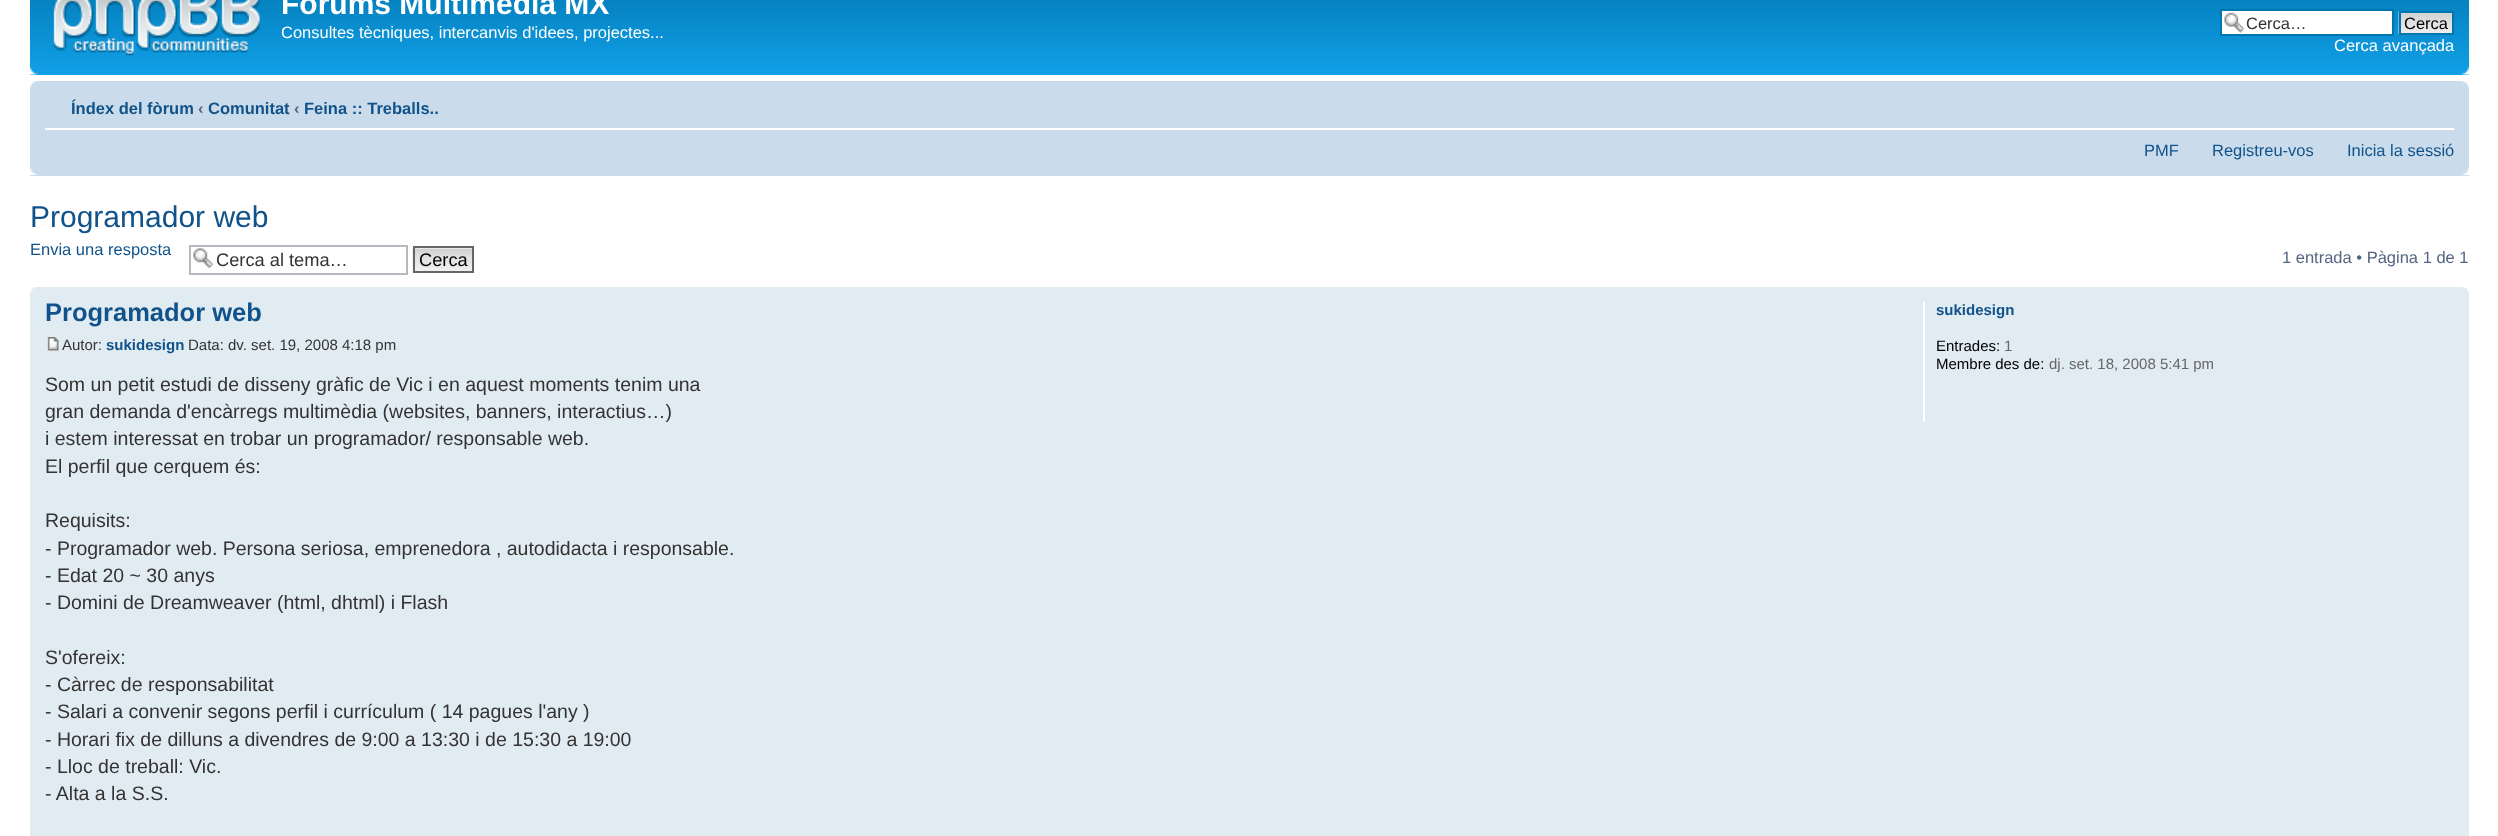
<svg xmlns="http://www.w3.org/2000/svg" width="2498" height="836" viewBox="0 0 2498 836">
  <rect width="100%" height="100%" fill="#fff"/>
  <path d="M30 74h2439v1H30z" fill="#12a3eb"/>
  <image x="30" y="0" width="2439" height="74" href="img/1.png"/>
  <image x="53" y="0" width="207" height="56" href="img/2.png"/>
  <path d="M2222 11h170v23H2222z" fill="#fff"/>
  <image x="2224" y="12" width="21" height="21" href="img/3.png"/>
  <path d="M2221 10h172v25H2221z" fill="none" stroke="#0075b0" stroke-width="2"/>
  <image x="2398" y="11" width="54" height="23" href="img/4.png"/>
  <path d="M2400 12h53v22H2400z" fill="none" stroke="#0075b0" stroke-width="2"/>
  <image x="30" y="67" width="8" height="8" href="img/5.png"/>
  <image x="2461" y="67" width="8" height="8" href="img/6.png"/>
  <path d="M30 81h2439v95H30z" fill="#cadceb"/>
  <image x="30" y="81" width="8" height="7" href="img/7.png"/>
  <image x="2461" y="81" width="8" height="7" href="img/8.png"/>
  <path d="M45 128h2409v2H45z" fill="#fff"/>
  <image x="30" y="167" width="8" height="8" href="img/9.png"/>
  <image x="2461" y="167" width="8" height="8" href="img/10.png"/>
  <image x="193" y="248" width="21" height="20" href="img/11.png"/>
  <path d="M190 246h217v28H190z" fill="none" stroke="#b4bac0" stroke-width="2"/>
  <image x="412" y="247" width="60" height="26" href="img/12.png"/>
  <path d="M414 247h59v25H414z" fill="none" stroke="#666" stroke-width="2"/>
  <path d="M30 287h2439v549H30z" fill="#e1ebf2"/>
  <image x="30" y="287" width="7" height="6" href="img/13.png"/>
  <image x="2462" y="287" width="7" height="6" href="img/14.png"/>
  <image x="47" y="337" width="12" height="14" href="img/15.png"/>
  <path d="M1923 302h2v120H1923z" fill="#fff"/>
  <text x="281" y="14" font-family="Liberation Sans" font-size="30" font-weight="bold" fill="#fff">Forums Multimèdia MX</text>
  <text x="281" y="38" font-family="Liberation Sans" font-size="16.5" fill="#fff">Consultes tècniques, intercanvis d'idees, projectes...</text>
  <text x="2246" y="29" font-family="Liberation Sans" font-size="16.5" fill="#333">Cerca…</text>
  <text x="2404" y="29" font-family="Liberation Sans" font-size="16.5" fill="#000">Cerca</text>
  <text x="2334" y="51" font-family="Liberation Sans" font-size="16.5" fill="#fff">Cerca avançada</text>
  <text x="71" y="114" font-family="Liberation Sans" font-size="16.5" font-weight="bold" fill="#105289">Índex del fòrum</text>
  <text x="198" y="114" font-family="Liberation Sans" font-size="16.5" font-weight="bold" fill="#536482">‹</text>
  <text x="208" y="114" font-family="Liberation Sans" font-size="16.5" font-weight="bold" fill="#105289">Comunitat</text>
  <text x="294" y="114" font-family="Liberation Sans" font-size="16.5" font-weight="bold" fill="#536482">‹</text>
  <text x="304" y="114" font-family="Liberation Sans" font-size="16.5" font-weight="bold" fill="#105289">Feina :: Treballs..</text>
  <g font-family="Liberation Sans" font-size="16.5" fill="#105289">
    <text x="2144" y="156">PMF</text>
    <text x="2212" y="156">Registreu-vos</text>
    <text x="2347" y="156">Inicia la sessió</text>
  </g>
  <text x="30" y="227" font-family="Liberation Sans" font-size="30" fill="#105289">Programador web</text>
  <text x="30" y="255" font-family="Liberation Sans" font-size="16.5" fill="#105289">Envia una resposta</text>
  <text x="216" y="266" font-family="Liberation Sans" font-size="18.25" fill="#333">Cerca al tema…</text>
  <text x="419" y="266" font-family="Liberation Sans" font-size="18.25" fill="#000">Cerca</text>
  <text x="2282" y="263" font-family="Liberation Sans" font-size="16.5" fill="#536482">1 entrada • Pàgina 1 de 1</text>
  <text x="45" y="321" font-family="Liberation Sans" font-size="25.5" font-weight="bold" fill="#105289">Programador web</text>
  <text x="62" y="350" font-family="Liberation Sans" font-size="15" fill="#333">Autor:</text>
  <text x="106" y="350" font-family="Liberation Sans" font-size="15" font-weight="bold" fill="#105289">sukidesign</text>
  <text x="188" y="350" font-family="Liberation Sans" font-size="15" fill="#333">Data: dv. set. 19, 2008 4:18 pm</text>
  <g font-family="Liberation Sans" font-size="19.5" fill="#333">
    <text x="45" y="391">Som un petit estudi de disseny gràfic de Vic i en aquest moments tenim una</text>
    <text x="45" y="418">gran demanda d'encàrregs multimèdia (websites, banners, interactius…)</text>
    <text x="45" y="445">i estem interessat en trobar un programador/ responsable web.</text>
    <text x="45" y="473">El perfil que cerquem és:</text>
    <text x="45" y="527">Requisits:</text>
    <text x="45" y="555">- Programador web. Persona seriosa, emprenedora , autodidacta i responsable.</text>
    <text x="45" y="582">- Edat 20 ~ 30 anys</text>
    <text x="45" y="609">- Domini de Dreamweaver (html, dhtml) i Flash</text>
    <text x="45" y="664">S'ofereix:</text>
    <text x="45" y="691">- Càrrec de responsabilitat</text>
    <text x="45" y="718">- Salari a convenir segons perfil i currículum ( 14 pagues l'any )</text>
    <text x="45" y="746">- Horari fix de dilluns a divendres de 9:00 a 13:30 i de 15:30 a 19:00</text>
    <text x="45" y="773">- Lloc de treball: Vic.</text>
    <text x="45" y="800">- Alta a la S.S.</text>
  </g>
  <text x="1936" y="315" font-family="Liberation Sans" font-size="15" font-weight="bold" fill="#105289">sukidesign</text>
  <text x="1936" y="351" font-family="Liberation Sans" font-size="15" fill="#000">Entrades:</text>
  <text x="2004" y="351" font-family="Liberation Sans" font-size="15" fill="#666">1</text>
  <text x="1936" y="369" font-family="Liberation Sans" font-size="15" fill="#000">Membre des de:</text>
  <text x="2049" y="369" font-family="Liberation Sans" font-size="15" fill="#666">dj. set. 18, 2008 5:41 pm</text>
</svg>
